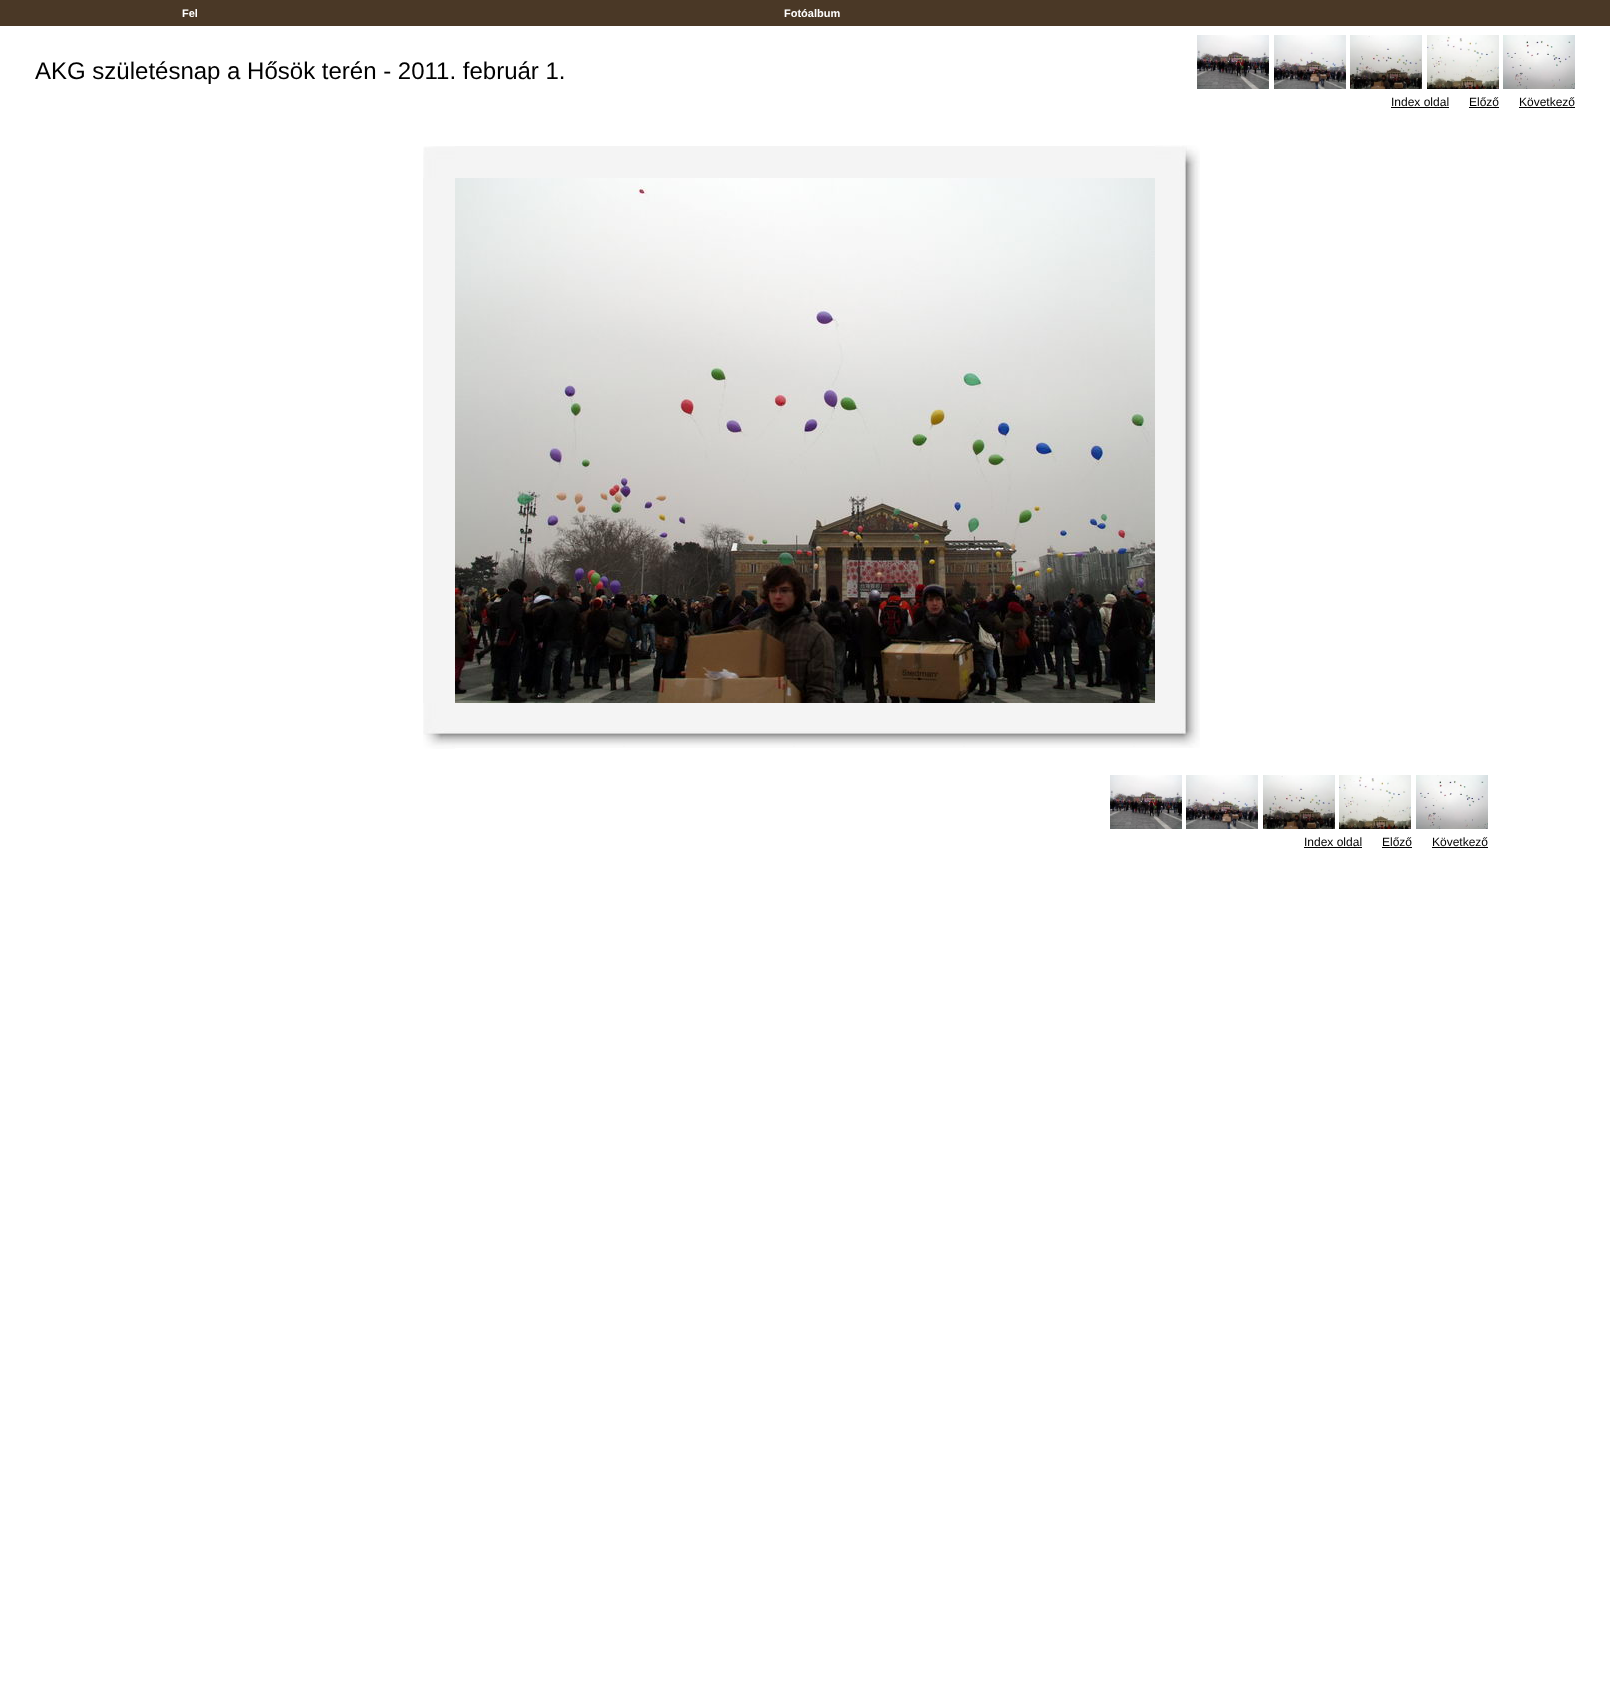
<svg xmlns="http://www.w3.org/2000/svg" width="1610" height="1695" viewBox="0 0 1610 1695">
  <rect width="100%" height="100%" fill="#fff"/>
  <path d="M0 0h1610v26H0z" fill="#4a3826"/>
  <image x="1197" y="35" width="72" height="54" href="img/1.png"/>
  <image x="1274" y="35" width="72" height="54" href="img/2.png"/>
  <image x="1350" y="35" width="72" height="54" href="img/3.png"/>
  <image x="1427" y="35" width="72" height="54" href="img/4.png"/>
  <image x="1503" y="35" width="72" height="54" href="img/5.png"/>
  <path d="M1391 107h58v1H1391z" fill="#000"/>
  <path d="M1469 107h30v1H1469z" fill="#000"/>
  <path d="M1519 107h56v1H1519z" fill="#000"/>
  <image x="423" y="146" width="32" height="32" href="img/6.png"/>
  <path d="M455 146h700v32H455z" fill="#f4f4f4"/>
  <image x="1155" y="145" width="45" height="33" href="img/7.png"/>
  <path d="M423 178h32v525H423z" fill="#f4f4f4"/>
  <image x="455" y="178" width="700" height="525" href="img/8.png"/>
  <image x="1155" y="178" width="45" height="525" href="img/9.png"/>
  <image x="423" y="703" width="32" height="46" href="img/10.png"/>
  <image x="455" y="703" width="700" height="45" href="img/11.png"/>
  <image x="1155" y="703" width="45" height="45" href="img/12.png"/>
  <image x="1110" y="775" width="72" height="54" href="img/1.png"/>
  <image x="1186" y="775" width="72" height="54" href="img/2.png"/>
  <image x="1263" y="775" width="72" height="54" href="img/3.png"/>
  <image x="1339" y="775" width="72" height="54" href="img/4.png"/>
  <image x="1416" y="775" width="72" height="54" href="img/5.png"/>
  <path d="M1304 847h58v1H1304z" fill="#000"/>
  <path d="M1382 847h30v1H1382z" fill="#000"/>
  <path d="M1432 847h56v1H1432z" fill="#000"/>
  <g font-family="Liberation Sans" font-size="11" font-weight="bold" fill="#fff">
    <text x="182" y="17">Fel</text>
    <text x="784" y="17">Fotóalbum</text>
  </g>
  <text x="35" y="79" font-family="Liberation Sans" font-size="24" fill="#000">AKG születésnap a Hősök terén - 2011. február 1.</text>
  <g font-family="Liberation Sans" font-size="12" fill="#000">
    <text x="1391" y="106">Index oldal</text>
    <text x="1469" y="106">Előző</text>
    <text x="1519" y="106">Következő</text>
    <text x="1304" y="846">Index oldal</text>
    <text x="1382" y="846">Előző</text>
    <text x="1432" y="846">Következő</text>
  </g>
</svg>
